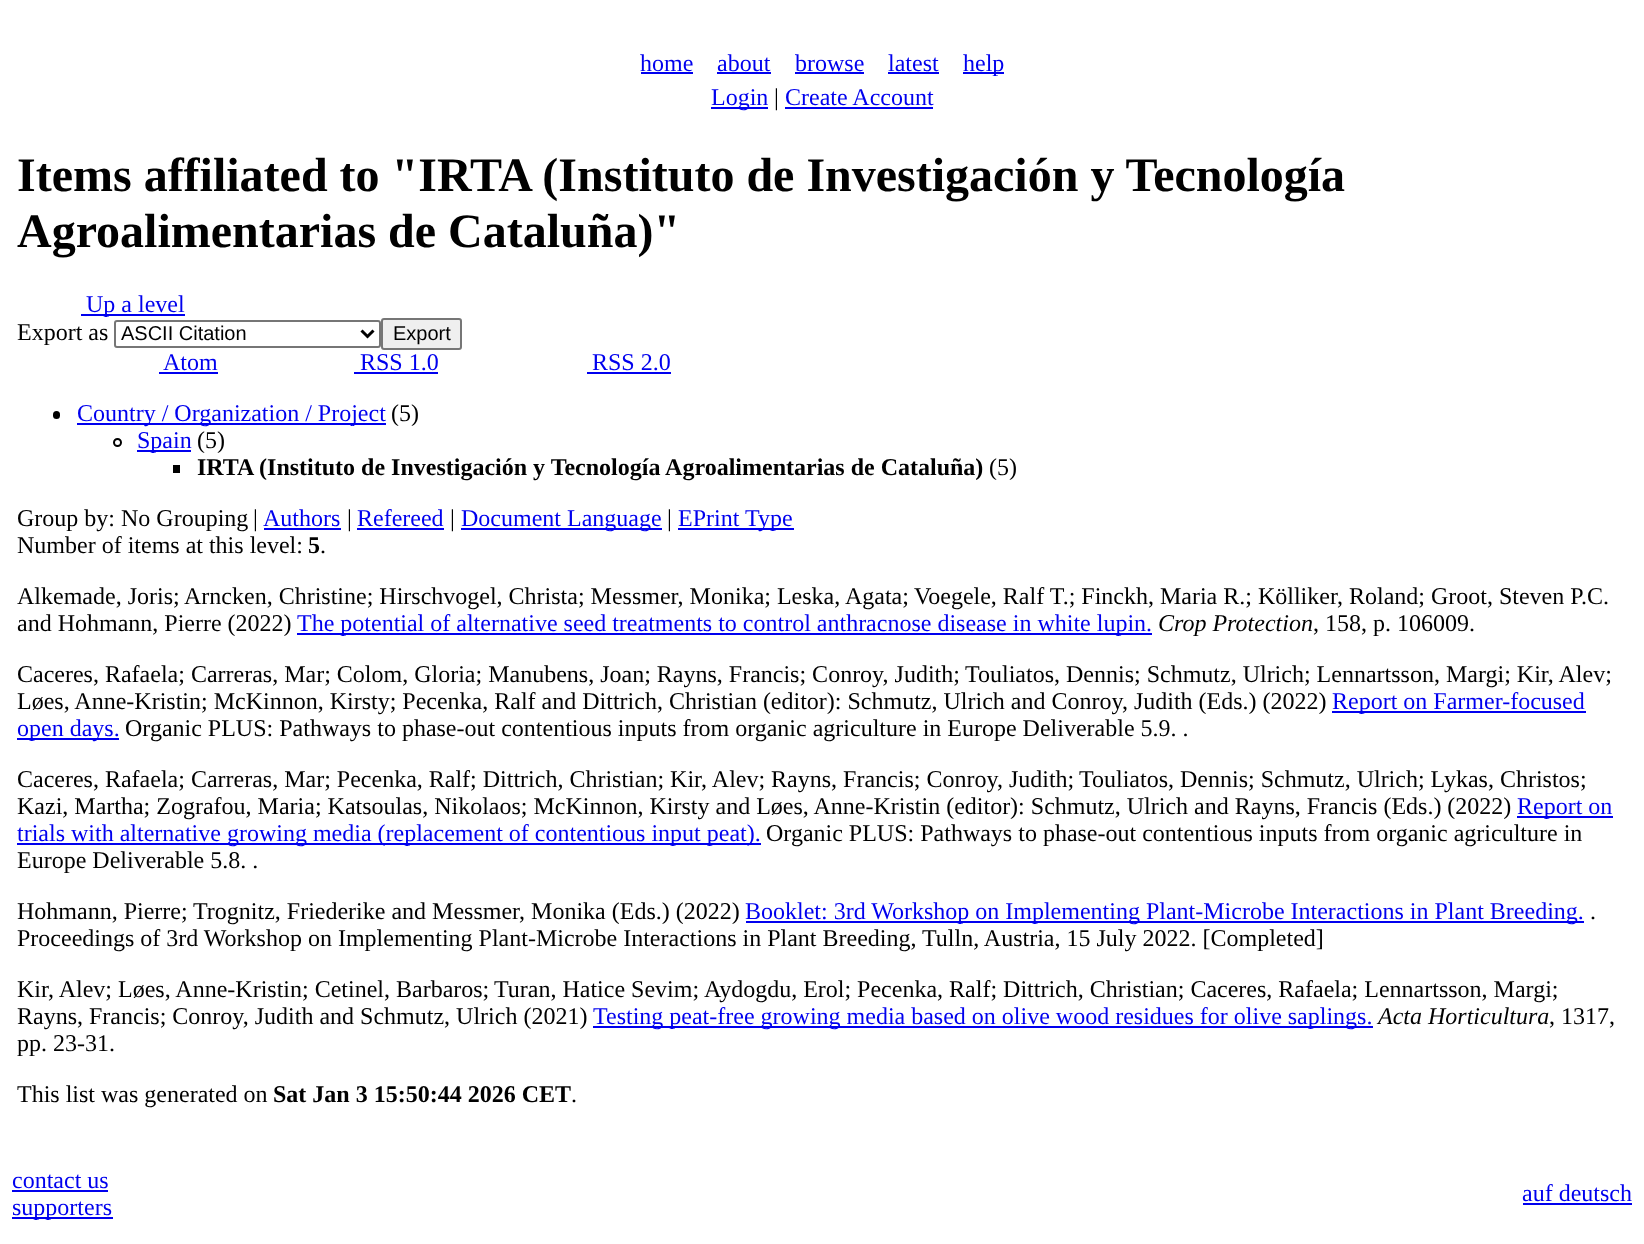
<svg xmlns="http://www.w3.org/2000/svg" width="1644" height="1244" viewBox="0 0 1644 1244">
  <rect width="100%" height="100%" fill="#fff"/>
  <path d="M641 72h52v2H641z" fill="#00e"/>
  <path d="M717 72h54v2H717z" fill="#00e"/>
  <path d="M795 72h69v2H795z" fill="#00e"/>
  <path d="M888 72h51v2H888z" fill="#00e"/>
  <path d="M963 72h41v2H963z" fill="#00e"/>
  <path d="M711 107h57v2H711z" fill="#00e"/>
  <path d="M785 107h148v2H785z" fill="#00e"/>
  <path d="M81 314h104v2H81z" fill="#00e"/>
  <rect x="115" y="321" width="265" height="26" rx="2" fill="none" stroke="#767676" stroke-width="2"/>
  <path d="M361.5 330.5L367.5 336.5L373.5 330.5" fill="none" stroke="#000" stroke-width="3"/>
  <rect x="382" y="319" width="79" height="30" rx="2" fill="#efefef" stroke="#767676" stroke-width="2"/>
  <path d="M159 372h59v2H159z" fill="#00e"/>
  <path d="M354 372h84v2H354z" fill="#00e"/>
  <path d="M587 372h84v2H587z" fill="#00e"/>
  <rect x="53" y="411" width="7" height="8" rx="3.5" fill="#000"/>
  <path d="M77 423h309v2H77z" fill="#00e"/>
  <circle cx="117.5" cy="442.5" r="3.5" fill="none" stroke="#000" stroke-width="2"/>
  <path d="M137 450h54v2H137z" fill="#00e"/>
  <path d="M173 465h7v8H173z" fill="#000"/>
  <path d="M264 528h77v2H264z" fill="#00e"/>
  <path d="M357 528h87v2H357z" fill="#00e"/>
  <path d="M461 528h201v2H461z" fill="#00e"/>
  <path d="M678 528h116v2H678z" fill="#00e"/>
  <path d="M297 633h855v2H297z" fill="#00e"/>
  <path d="M1332 711h254v2H1332z" fill="#00e"/>
  <path d="M17 738h102v2H17z" fill="#00e"/>
  <path d="M1517 816h96v2H1517z" fill="#00e"/>
  <path d="M17 843h744v2H17z" fill="#00e"/>
  <path d="M746 921h838v2H746z" fill="#00e"/>
  <path d="M593 1026h780v2H593z" fill="#00e"/>
  <path d="M12 1190h96v2H12z" fill="#00e"/>
  <path d="M12 1217h101v2H12z" fill="#00e"/>
  <path d="M1523 1203h109v2H1523z" fill="#00e"/>
  <g font-family="Liberation Serif" font-size="24" fill="#00e">
    <text x="640" y="71">home</text>
    <text x="717" y="71">about</text>
    <text x="795" y="71">browse</text>
    <text x="888" y="71">latest</text>
    <text x="963" y="71">help</text>
    <text x="711" y="105">Login</text>
  </g>
  <text x="774" y="105" font-family="Liberation Serif" font-size="24" fill="#000">|</text>
  <text x="785" y="105" font-family="Liberation Serif" font-size="24" fill="#00e">Create Account</text>
  <g font-family="Liberation Serif" font-size="48" font-weight="bold" fill="#000">
    <text x="17" y="191">Items affiliated to "IRTA (Instituto de Investigación y Tecnología</text>
    <text x="17" y="247">Agroalimentarias de Cataluña)"</text>
  </g>
  <text x="86" y="312" font-family="Liberation Serif" font-size="24" fill="#00e">Up a level</text>
  <text x="17" y="340" font-family="Liberation Serif" font-size="24" fill="#000">Export as</text>
  <g font-family="Liberation Sans" font-size="20" fill="#000">
    <text x="121" y="340">ASCII Citation</text>
    <text x="393" y="340">Export</text>
  </g>
  <g font-family="Liberation Serif" font-size="24" fill="#00e">
    <text x="163" y="370">Atom</text>
    <text x="360" y="370">RSS 1.0</text>
    <text x="592" y="370">RSS 2.0</text>
    <text x="77" y="421">Country / Organization / Project</text>
  </g>
  <text x="391" y="421" font-family="Liberation Serif" font-size="24" fill="#000">(5)</text>
  <text x="137" y="448" font-family="Liberation Serif" font-size="24" fill="#00e">Spain</text>
  <text x="197" y="448" font-family="Liberation Serif" font-size="24" fill="#000">(5)</text>
  <text x="197" y="475" font-family="Liberation Serif" font-size="24" font-weight="bold" fill="#000">IRTA (Instituto de Investigación y Tecnología Agroalimentarias de Cataluña)</text>
  <g font-family="Liberation Serif" font-size="24" fill="#000">
    <text x="989" y="475">(5)</text>
    <text x="17" y="526">Group by: No Grouping</text>
    <text x="253" y="526">|</text>
  </g>
  <text x="263" y="526" font-family="Liberation Serif" font-size="24" fill="#00e">Authors</text>
  <text x="347" y="526" font-family="Liberation Serif" font-size="24" fill="#000">|</text>
  <text x="357" y="526" font-family="Liberation Serif" font-size="24" fill="#00e">Refereed</text>
  <text x="450" y="526" font-family="Liberation Serif" font-size="24" fill="#000">|</text>
  <text x="461" y="526" font-family="Liberation Serif" font-size="24" fill="#00e">Document Language</text>
  <text x="667" y="526" font-family="Liberation Serif" font-size="24" fill="#000">|</text>
  <text x="678" y="526" font-family="Liberation Serif" font-size="24" fill="#00e">EPrint Type</text>
  <text x="17" y="553" font-family="Liberation Serif" font-size="24" fill="#000">Number of items at this level:</text>
  <text x="308" y="553" font-family="Liberation Serif" font-size="24" font-weight="bold" fill="#000">5</text>
  <g font-family="Liberation Serif" font-size="24" fill="#000">
    <text x="320" y="553">.</text>
    <text x="17" y="604">Alkemade, Joris;</text>
    <text x="184" y="604">Arncken, Christine; Hirschvogel, Christa; Messmer, Monika; Leska, Agata;</text>
    <text x="914" y="604">Voegele, Ralf T.; Finckh, Maria R.; Kölliker, Roland; Groot, Steven P.C.</text>
    <text x="17" y="631">and Hohmann, Pierre (2022)</text>
  </g>
  <text x="297" y="631" font-family="Liberation Serif" font-size="24" fill="#00e">The potential of alternative seed treatments to control anthracnose disease in white lupin.</text>
  <text x="1158" y="631" font-family="Liberation Serif" font-size="24" font-style="italic" fill="#000">Crop Protection</text>
  <g font-family="Liberation Serif" font-size="24" fill="#000">
    <text x="1313" y="631">, 158, p. 106009.</text>
    <text x="17" y="682">Caceres, Rafaela; Carreras, Mar; Colom, Gloria; Manubens, Joan; Rayns, Francis; Conroy, Judith;</text>
    <text x="965" y="682">Touliatos, Dennis; Schmutz, Ulrich; Lennartsson, Margi; Kir, Alev;</text>
    <text x="17" y="709">Løes, Anne-Kristin; McKinnon, Kirsty; Pecenka, Ralf and Dittrich, Christian (editor): Schmutz, Ulrich and Conroy, Judith (Eds.) (2022)</text>
  </g>
  <g font-family="Liberation Serif" font-size="24" fill="#00e">
    <text x="1332" y="709">Report on Farmer-focused</text>
    <text x="17" y="736">open days.</text>
  </g>
  <g font-family="Liberation Serif" font-size="24" fill="#000">
    <text x="125" y="736">Organic PLUS: Pathways to phase-out contentious inputs from organic agriculture in Europe Deliverable 5.9. .</text>
    <text x="17" y="787">Caceres, Rafaela; Carreras, Mar; Pecenka, Ralf; Dittrich, Christian; Kir, Alev; Rayns, Francis; Conroy, Judith;</text>
    <text x="1079" y="787">Touliatos, Dennis; Schmutz, Ulrich; Lykas, Christos;</text>
    <text x="17" y="814">Kazi, Martha; Zografou, Maria; Katsoulas, Nikolaos; McKinnon, Kirsty and Løes, Anne-Kristin (editor): Schmutz, Ulrich and Rayns, Francis (Eds.) (2022)</text>
  </g>
  <g font-family="Liberation Serif" font-size="24" fill="#00e">
    <text x="1517" y="814">Report on</text>
    <text x="17" y="841">trials with alternative growing media (replacement of contentious input peat).</text>
  </g>
  <g font-family="Liberation Serif" font-size="24" fill="#000">
    <text x="766" y="841">Organic PLUS: Pathways to phase-out contentious inputs from organic agriculture in</text>
    <text x="17" y="868">Europe Deliverable 5.8. .</text>
    <text x="17" y="919">Hohmann, Pierre;</text>
    <text x="193" y="919">Trognitz, Friederike and Messmer, Monika (Eds.) (2022)</text>
  </g>
  <text x="745" y="919" font-family="Liberation Serif" font-size="24" fill="#00e">Booklet: 3rd Workshop on Implementing Plant-Microbe Interactions in Plant Breeding.</text>
  <g font-family="Liberation Serif" font-size="24" fill="#000">
    <text x="1590" y="919">.</text>
    <text x="17" y="946">Proceedings of 3rd Workshop on Implementing Plant-Microbe Interactions in Plant Breeding, Tulln, Austria, 15 July 2022. [Completed]</text>
    <text x="17" y="997">Kir, Alev; Løes, Anne-Kristin; Cetinel, Barbaros;</text>
    <text x="494" y="997">Turan, Hatice Sevim;</text>
    <text x="704" y="997">Aydogdu, Erol; Pecenka, Ralf; Dittrich, Christian; Caceres, Rafaela; Lennartsson, Margi;</text>
    <text x="17" y="1024">Rayns, Francis; Conroy, Judith and Schmutz, Ulrich (2021)</text>
  </g>
  <text x="593" y="1024" font-family="Liberation Serif" font-size="24" fill="#00e">Testing peat-free growing media based on olive wood residues for olive saplings.</text>
  <text x="1378" y="1024" font-family="Liberation Serif" font-size="24" font-style="italic" fill="#000">Acta Horticultura</text>
  <g font-family="Liberation Serif" font-size="24" fill="#000">
    <text x="1549" y="1024">, 1317,</text>
    <text x="17" y="1051">pp. 23-31.</text>
    <text x="17" y="1102">This list was generated on</text>
  </g>
  <text x="273" y="1102" font-family="Liberation Serif" font-size="24" font-weight="bold" fill="#000">Sat Jan 3 15:50:44 2026 CET</text>
  <text x="571" y="1102" font-family="Liberation Serif" font-size="24" fill="#000">.</text>
  <g font-family="Liberation Serif" font-size="24" fill="#00e">
    <text x="12" y="1188">contact us</text>
    <text x="12" y="1215">supporters</text>
    <text x="1522" y="1201">auf deutsch</text>
  </g>
</svg>
